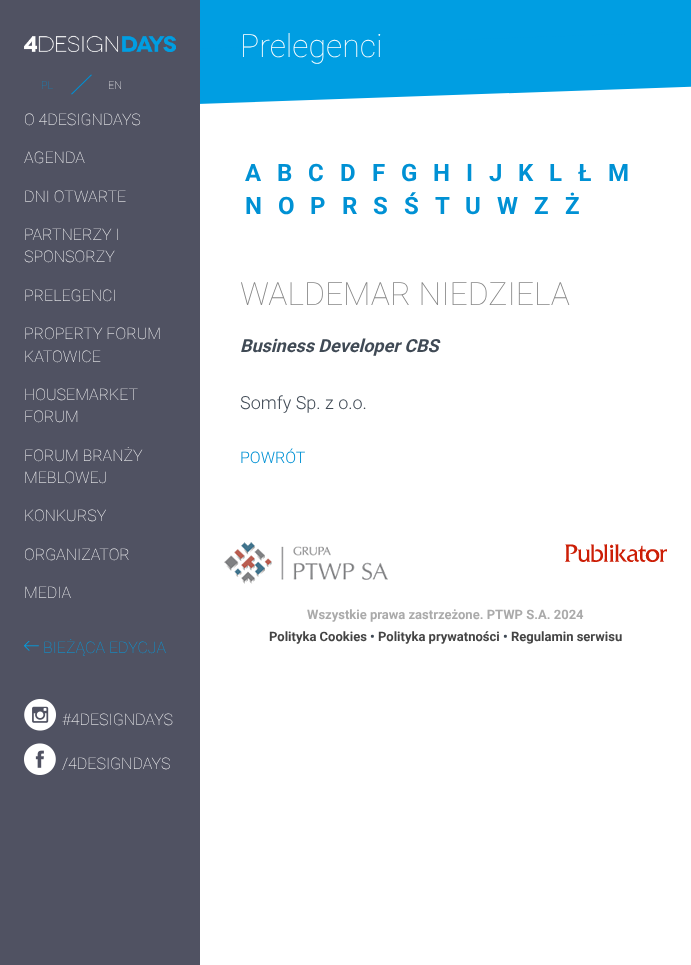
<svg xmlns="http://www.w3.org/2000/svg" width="691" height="965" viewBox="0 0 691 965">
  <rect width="100%" height="100%" fill="#fff"/>
  <path d="M200 0h491v49H200z" fill="#009ee2"/>
  <path d="M195 49L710 31L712 86L197 104Z" fill="#009ee2"/>
  <path d="M0 0h200v965H0z" fill="#505262"/>
  <image x="24" y="35" width="152" height="17" href="img/1.png"/>
  <path d="M91 74.5L92 75L72 94.5L71 94Z" fill="#0091d4"/>
  <image x="24" y="641" width="15" height="10" href="img/2.png"/>
  <image x="24" y="699" width="32" height="32" href="img/3.png"/>
  <image x="24" y="743" width="32" height="32" href="img/4.png"/>
  <image x="224" y="542" width="164" height="42" href="img/5.png"/>
  <image x="565" y="544" width="102" height="18" href="img/6.png"/>
  <text x="41" y="89" font-family="Roboto" font-size="11" font-weight="100" fill="#0091d4">PL</text>
  <text x="108" y="89" font-family="Roboto" font-size="11" font-weight="100" fill="#fff">EN</text>
  <g font-family="Roboto" font-size="16" font-weight="100" fill="#fff">
    <text x="24" y="125">O 4DESIGNDAYS</text>
    <text x="24" y="163">AGENDA</text>
    <text x="24" y="202">DNI OTWARTE</text>
    <text x="24" y="240">PARTNERZY I</text>
    <text x="24" y="262">SPONSORZY</text>
    <text x="24" y="301">PRELEGENCI</text>
    <text x="24" y="339">PROPERTY FORUM</text>
    <text x="24" y="362">KATOWICE</text>
    <text x="24" y="400">HOUSEMARKET</text>
    <text x="24" y="422">FORUM</text>
    <text x="24" y="461">FORUM BRANŻY</text>
    <text x="24" y="483">MEBLOWEJ</text>
    <text x="24" y="521">KONKURSY</text>
    <text x="24" y="560">ORGANIZATOR</text>
    <text x="24" y="598">MEDIA</text>
  </g>
  <text x="43" y="653" font-family="Roboto" font-size="16" font-weight="100" fill="#009ee2">BIEŻĄCA EDYCJA</text>
  <g font-family="Roboto" font-size="16" font-weight="100" fill="#fff">
    <text x="62" y="725">#4DESIGNDAYS</text>
    <text x="62" y="769">/4DESIGNDAYS</text>
  </g>
  <text x="240" y="57" font-family="Roboto" font-size="32" font-weight="100" fill="#fff">Prelegenci</text>
  <g font-family="Roboto" font-size="24" font-weight="bold" fill="#0091d4">
    <text x="245" y="181">A</text>
    <text x="277" y="181">B</text>
    <text x="308" y="181">C</text>
    <text x="340" y="181">D</text>
    <text x="372" y="181">F</text>
    <text x="401" y="181">G</text>
    <text x="433" y="181">H</text>
    <text x="466" y="181">I</text>
    <text x="489" y="181">J</text>
    <text x="518" y="181">K</text>
    <text x="549" y="181">L</text>
    <text x="578" y="181">Ł</text>
    <text x="608" y="181">M</text>
    <text x="245" y="214">N</text>
    <text x="278" y="214">O</text>
    <text x="310" y="214">P</text>
    <text x="342" y="214">R</text>
    <text x="373" y="214">S</text>
    <text x="404" y="214">Ś</text>
    <text x="435" y="214">T</text>
    <text x="465" y="214">U</text>
    <text x="497" y="214">W</text>
    <text x="534" y="214">Z</text>
    <text x="565" y="214">Ż</text>
  </g>
  <text x="240" y="305" font-family="Roboto" font-size="32" font-weight="100" fill="#888">WALDEMAR NIEDZIELA</text>
  <text x="240" y="352" font-family="Roboto" font-size="18" font-weight="bold" font-style="italic" fill="#404a55">Business Developer CBS</text>
  <text x="240" y="409" font-family="Roboto" font-size="18" font-weight="300" fill="#404a55">Somfy Sp. z o.o.</text>
  <text x="240" y="463" font-family="Roboto" font-size="16" font-weight="300" fill="#0091d4">POWRÓT</text>
  <text x="307" y="619" font-family="Roboto" font-size="13" font-weight="bold" fill="#aaa">Wszystkie prawa zastrzeżone. PTWP S.A. 2024</text>
  <text x="269" y="641" font-family="Roboto" font-size="13" font-weight="bold" fill="#444">Polityka Cookies</text>
  <text x="370" y="641" font-family="Roboto" font-size="13" font-weight="bold" fill="#404a55">•</text>
  <text x="378" y="641" font-family="Roboto" font-size="13" font-weight="bold" fill="#444">Polityka prywatności</text>
  <text x="503" y="641" font-family="Roboto" font-size="13" font-weight="bold" fill="#404a55">•</text>
  <text x="511" y="641" font-family="Roboto" font-size="13" font-weight="bold" fill="#444">Regulamin serwisu</text>
</svg>
